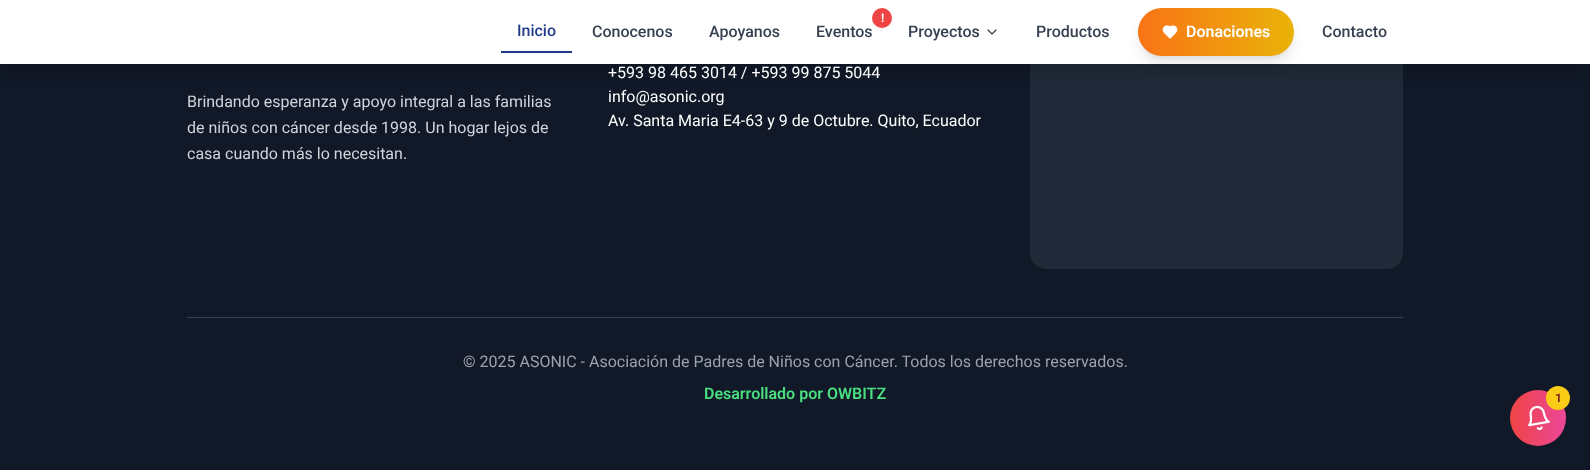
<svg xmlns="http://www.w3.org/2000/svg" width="1590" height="470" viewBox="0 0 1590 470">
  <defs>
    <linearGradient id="g1" gradientUnits="userSpaceOnUse" x1="1138" y1="32" x2="1294" y2="32"><stop offset="0" stop-color="#f97316"/><stop offset="1" stop-color="#eab308"/></linearGradient>
    <linearGradient id="g2" gradientUnits="userSpaceOnUse" x1="1510" y1="418" x2="1566" y2="418"><stop offset="0" stop-color="#ef4444"/><stop offset="1" stop-color="#ec4899"/></linearGradient>
  </defs>
  <rect width="100%" height="100%" fill="#111827"/>
  <rect x="1030" y="-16" width="373" height="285" rx="16" fill="#1f2937"/>
  <path d="M3 13h1584v58H3z" fill="#0000001a" filter="blur(7.5px)"/>
  <path d="M0 0h1590v64H0z" fill="#fff"/>
  <path d="M501 51h71v2H501z" fill="#1e3a8a"/>
  <rect x="876" y="16" width="12" height="12" rx="6" fill="#0000001a" filter="blur(3px)"/>
  <circle cx="882" cy="18" r="10" fill="#ef4444"/>
  <path d="M988 30L992 34L996 30" fill="none" stroke="#374151" stroke-width="1.3" stroke-linecap="round" stroke-linejoin="round"/>
  <rect x="1142" y="16" width="148" height="40" rx="20" fill="#0000001a" filter="blur(3px)"/>
  <rect x="1141" y="21" width="150" height="42" rx="21" fill="#0000001a" filter="blur(7.5px)"/>
  <rect x="1138" y="8" width="156" height="48" rx="24" fill="url(#g1)"/>
  <image x="1162" y="25" width="16" height="14" href="img/1.png"/>
  <path d="M187 317h1216v1H187z" fill="#374151"/>
  <circle cx="1538" cy="418" r="28" fill="url(#g2)"/>
  <image x="1528" y="405" width="22" height="25" href="img/2.png"/>
  <circle cx="1558" cy="398" r="12" fill="#facc15"/>
  <text x="517" y="36" font-family="Roboto" font-size="16" font-weight="500" fill="#1e3a8a">Inicio</text>
  <g font-family="Roboto" font-size="16" font-weight="500" fill="#374151">
    <text x="592" y="37">Conocenos</text>
    <text x="709" y="37">Apoyanos</text>
  </g>
  <text x="881" y="22" font-family="Roboto" font-size="12" font-weight="bold" fill="#fff">!</text>
  <g font-family="Roboto" font-size="16" font-weight="500" fill="#374151">
    <text x="816" y="37">Eventos</text>
    <text x="908" y="37">Proyectos</text>
    <text x="1036" y="37">Productos</text>
  </g>
  <text x="1186" y="37" font-family="Roboto" font-size="16" font-weight="600" fill="#fff">Donaciones</text>
  <text x="1322" y="37" font-family="Roboto" font-size="16" font-weight="500" fill="#374151">Contacto</text>
  <g font-family="Roboto" font-size="16" fill="#d1d5db">
    <text x="187" y="107">Brindando esperanza y apoyo integral a las familias</text>
    <text x="187" y="133">de niños con cáncer desde 1998. Un hogar lejos de</text>
    <text x="187" y="159">casa cuando más lo necesitan.</text>
  </g>
  <g font-family="Roboto" font-size="16" fill="#fff">
    <text x="608" y="78">+593 98 465 3014 / +593 99 875 5044</text>
    <text x="608" y="102">info@asonic.org</text>
    <text x="608" y="126">Av. Santa Maria E4-63 y 9 de Octubre. Quito, Ecuador</text>
  </g>
  <text x="463" y="367" font-family="Roboto" font-size="16" fill="#9ca3af">© 2025 ASONIC - Asociación de Padres de Niños con Cáncer. Todos los derechos reservados.</text>
  <text x="704" y="399" font-family="Roboto" font-size="16" font-weight="600" fill="#4ade80">Desarrollado por OWBITZ</text>
  <text x="1555" y="402" font-family="Roboto" font-size="12" font-weight="bold" fill="#7f1d1d">1</text>
</svg>
